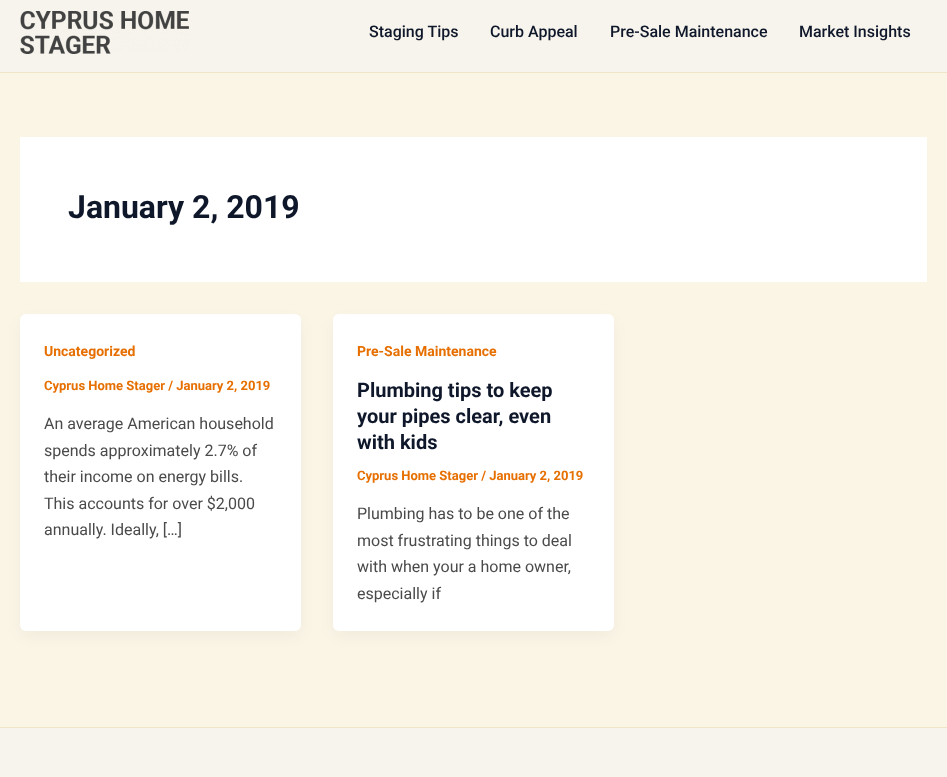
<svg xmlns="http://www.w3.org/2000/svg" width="947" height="777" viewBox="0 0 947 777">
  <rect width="100%" height="100%" fill="#faf5e5"/>
  <path d="M0 0h947v72H0z" fill="#f7f4ed"/>
  <path d="M0 72h947v1H0z" fill="#f0e6c5"/>
  <image x="20" y="11" width="169" height="43" href="img/1.png"/>
  <path d="M20 137h907v145H20z" fill="#fff"/>
  <rect x="22" y="322" width="277" height="313" rx="4" fill="#1018280d" filter="blur(7.5px)"/>
  <rect x="20" y="314" width="281" height="317" rx="6" fill="#fff"/>
  <rect x="335" y="322" width="277" height="313" rx="4" fill="#1018280d" filter="blur(7.5px)"/>
  <rect x="333" y="314" width="281" height="317" rx="6" fill="#fff"/>
  <path d="M0 728h947v49H0z" fill="#f7f4ed"/>
  <path d="M0 727h947v1H0z" fill="#f0e6c5"/>
  <g font-family="Roboto" font-size="16" font-weight="500" fill="#0f172a">
    <text x="369" y="37">Staging Tips</text>
    <text x="490" y="37">Curb Appeal</text>
    <text x="610" y="37">Pre-Sale Maintenance</text>
    <text x="799" y="37">Market Insights</text>
  </g>
  <text x="68" y="218" font-family="Roboto" font-size="32" font-weight="bold" fill="#0f172a">January 2, 2019</text>
  <text x="44" y="356" font-family="Roboto" font-size="14" font-weight="bold" fill="#e66f00">Uncategorized</text>
  <text x="44" y="390" font-family="Roboto" font-size="13" font-weight="bold" fill="#e66f00">Cyprus Home Stager / January 2, 2019</text>
  <g font-family="Roboto" font-size="16" fill="#4a4a4a">
    <text x="44" y="429">An average American household</text>
    <text x="44" y="456">spends approximately 2.7% of</text>
    <text x="44" y="482">their income on energy bills.</text>
    <text x="44" y="509">This accounts for over $2,000</text>
    <text x="44" y="535">annually. Ideally, […]</text>
  </g>
  <text x="357" y="356" font-family="Roboto" font-size="14" font-weight="bold" fill="#e66f00">Pre-Sale Maintenance</text>
  <g font-family="Roboto" font-size="20" font-weight="bold" fill="#0f172a">
    <text x="357" y="397">Plumbing tips to keep</text>
    <text x="357" y="423">your pipes clear, even</text>
    <text x="357" y="449">with kids</text>
  </g>
  <text x="357" y="480" font-family="Roboto" font-size="13" font-weight="bold" fill="#e66f00">Cyprus Home Stager / January 2, 2019</text>
  <g font-family="Roboto" font-size="16" fill="#4a4a4a">
    <text x="357" y="519">Plumbing has to be one of the</text>
    <text x="357" y="546">most frustrating things to deal</text>
    <text x="357" y="572">with when your a home owner,</text>
    <text x="357" y="599">especially if</text>
  </g>
</svg>
